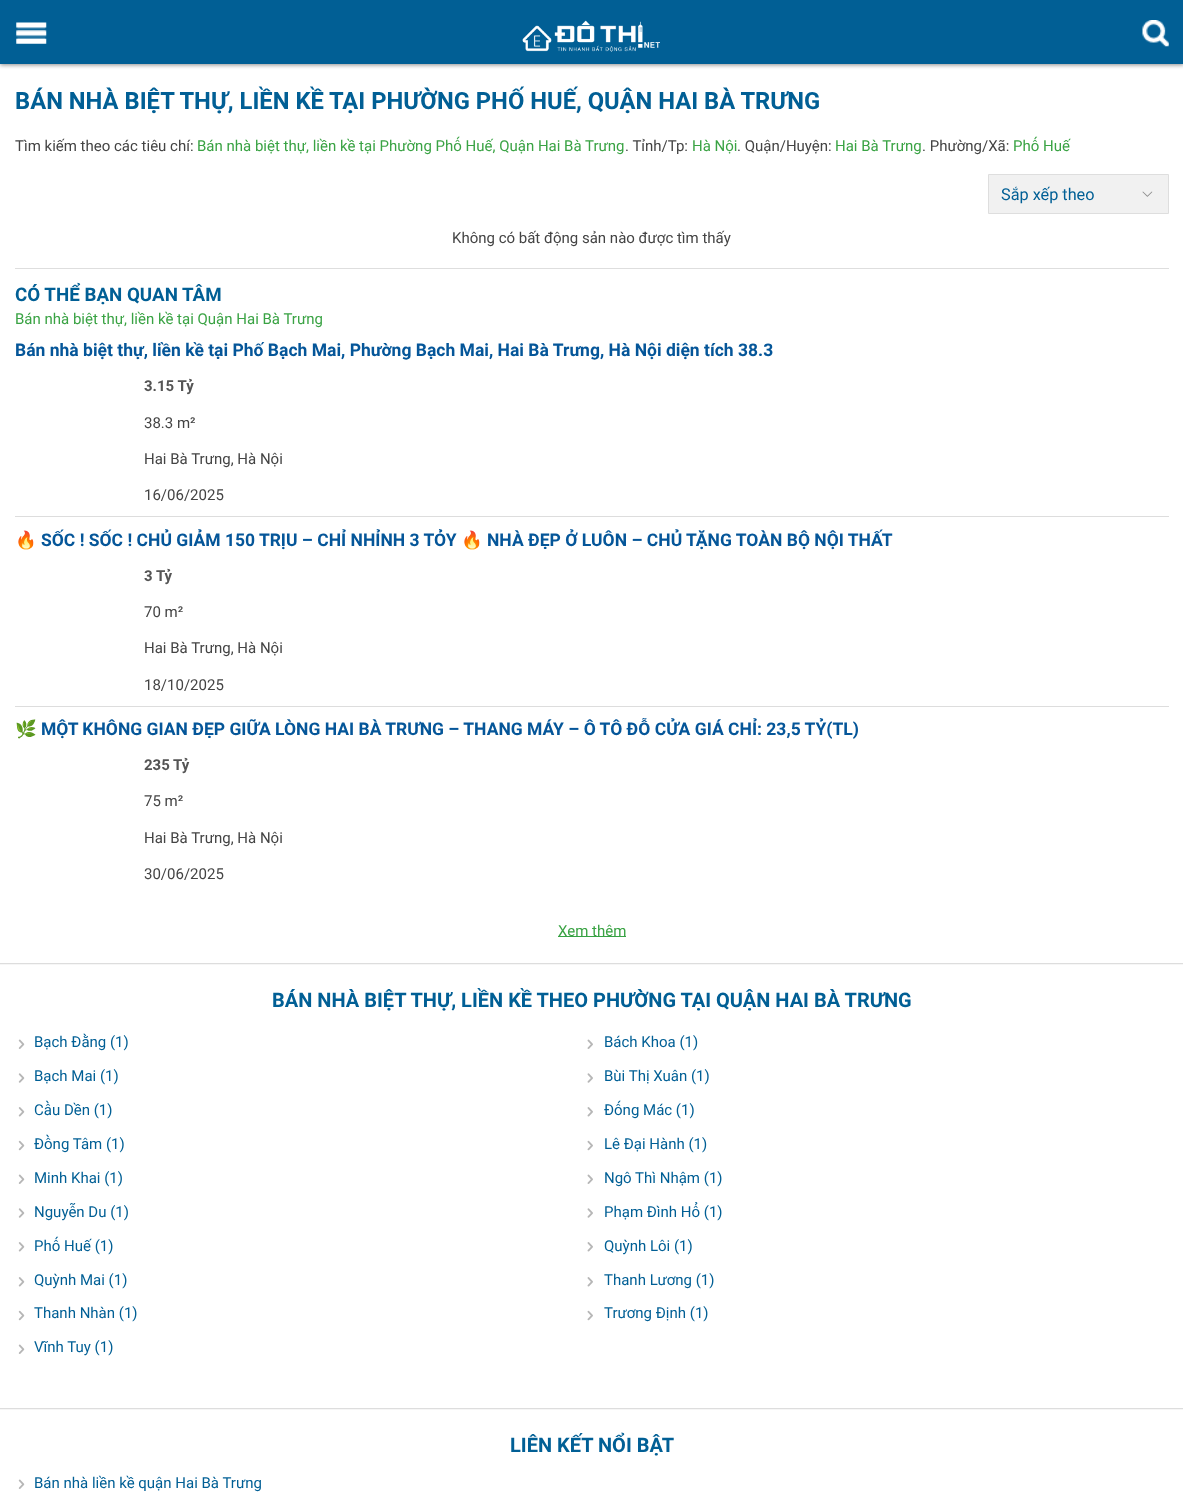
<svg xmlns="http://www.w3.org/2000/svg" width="1183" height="1509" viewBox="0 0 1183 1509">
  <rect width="100%" height="100%" fill="#fff"/>
  <path d="M0 1h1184v64H0z" fill="#666666bf" filter="blur(2px)"/>
  <path d="M0 0h1183v64H0z" fill="#015f95"/>
  <image x="16" y="22" width="31" height="22" href="img/1.png"/>
  <image x="522" y="20" width="138" height="32" href="img/2.png"/>
  <image x="1142" y="20" width="27" height="27" href="img/3.png"/>
  <path d="M988.5 174.5h180v39H988.5z" fill="#f1f1f1" stroke="#dedede"/>
  <image x="1142" y="191" width="11" height="6" href="img/4.png"/>
  <path d="M15 268h1154v1H15z" fill="#dedede"/>
  <path d="M15 516h1154v1H15z" fill="#ddd"/>
  <path d="M15 706h1154v1H15z" fill="#ddd"/>
  <path d="M558 936h68v1H558z" fill="#37a244"/>
  <path d="M0 963h1183v1H0z" fill="#ddd"/>
  <path d="M0 964h1183v1H0z" fill="#f6f6f6"/>
  <image x="18" y="1039" width="7" height="10" href="img/5.png"/>
  <image x="587" y="1039" width="6" height="10" href="img/6.png"/>
  <image x="18" y="1073" width="7" height="10" href="img/7.png"/>
  <image x="587" y="1073" width="6" height="10" href="img/8.png"/>
  <image x="18" y="1107" width="7" height="10" href="img/9.png"/>
  <image x="587" y="1107" width="6" height="10" href="img/10.png"/>
  <image x="18" y="1140" width="7" height="11" href="img/11.png"/>
  <image x="587" y="1140" width="6" height="11" href="img/12.png"/>
  <image x="18" y="1174" width="7" height="10" href="img/5.png"/>
  <image x="587" y="1174" width="6" height="10" href="img/6.png"/>
  <image x="18" y="1208" width="7" height="10" href="img/7.png"/>
  <image x="587" y="1208" width="6" height="10" href="img/8.png"/>
  <image x="18" y="1242" width="7" height="10" href="img/9.png"/>
  <image x="587" y="1242" width="6" height="10" href="img/10.png"/>
  <image x="18" y="1277" width="7" height="10" href="img/9.png"/>
  <image x="587" y="1277" width="6" height="10" href="img/10.png"/>
  <image x="18" y="1310" width="7" height="11" href="img/11.png"/>
  <image x="587" y="1310" width="6" height="11" href="img/12.png"/>
  <image x="18" y="1344" width="7" height="10" href="img/5.png"/>
  <path d="M0 1408h1183v1H0z" fill="#ddd"/>
  <path d="M0 1409h1183v1H0z" fill="#f6f6f6"/>
  <image x="18" y="1479" width="7" height="10" href="img/5.png"/>
  <text x="15" y="109" font-family="Roboto" font-size="23.75" font-weight="bold" fill="#015f95">BÁN NHÀ BIỆT THỰ, LIỀN KỀ TẠI PHƯỜNG PHỐ HUẾ, QUẬN HAI BÀ TRƯNG</text>
  <text x="15" y="151" font-family="Roboto" font-size="15" fill="#444">Tìm kiếm theo các tiêu chí:</text>
  <text x="197" y="151" font-family="Roboto" font-size="15" fill="#3aa344">Bán nhà biệt thự, liền kề tại Phường Phố Huế, Quận Hai Bà Trưng</text>
  <text x="625" y="151" font-family="Roboto" font-size="15" fill="#444">. Tỉnh/Tp:</text>
  <text x="692" y="151" font-family="Roboto" font-size="15" fill="#3aa344">Hà Nội</text>
  <text x="737" y="151" font-family="Roboto" font-size="15" fill="#444">. Quận/Huyện:</text>
  <text x="835" y="151" font-family="Roboto" font-size="15" fill="#3aa344">Hai Bà Trưng</text>
  <text x="922" y="151" font-family="Roboto" font-size="15" fill="#444">. Phường/Xã:</text>
  <text x="1013" y="151" font-family="Roboto" font-size="15" fill="#3aa344">Phố Huế</text>
  <text x="1001" y="200" font-family="Roboto" font-size="16.25" fill="#015f95">Sắp xếp theo</text>
  <text x="452" y="243" font-family="Roboto" font-size="15" fill="#444">Không có bất động sản nào được tìm thấy</text>
  <text x="15" y="301" font-family="Roboto" font-size="18.75" font-weight="bold" fill="#015f95">CÓ THỂ BẠN QUAN TÂM</text>
  <text x="15" y="324" font-family="Roboto" font-size="15" fill="#3aa344">Bán nhà biệt thự, liền kề tại Quận Hai Bà Trưng</text>
  <text x="15" y="356" font-family="Roboto" font-size="17.5" font-weight="bold" fill="#055699">Bán nhà biệt thự, liền kề tại Phố Bạch Mai, Phường Bạch Mai, Hai Bà Trưng, Hà Nội diện tích 38.3</text>
  <text x="144" y="391" font-family="Roboto" font-size="15" font-weight="bold" fill="#555">3.15 Tỷ</text>
  <g font-family="Roboto" font-size="15" fill="#444">
    <text x="144" y="428">38.3 m²</text>
    <text x="144" y="464">Hai Bà Trưng, Hà Nội</text>
    <text x="144" y="500">16/06/2025</text>
  </g>
  <text x="15" y="546" font-family="Noto Color Emoji" font-size="17.5" fill="#055699">🔥</text>
  <text x="41" y="546" font-family="Roboto" font-size="17.5" font-weight="bold" fill="#055699">SỐC ! SỐC ! CHỦ GIẢM 150 TRỊU – CHỈ NHỈNH 3 TỎY</text>
  <text x="461" y="546" font-family="Noto Color Emoji" font-size="17.5" fill="#055699">🔥</text>
  <text x="487" y="546" font-family="Roboto" font-size="17.5" font-weight="bold" fill="#055699">NHÀ ĐẸP Ở LUÔN – CHỦ TẶNG TOÀN BỘ NỘI THẤT</text>
  <text x="144" y="581" font-family="Roboto" font-size="15" font-weight="bold" fill="#555">3 Tỷ</text>
  <g font-family="Roboto" font-size="15" fill="#444">
    <text x="144" y="617">70 m²</text>
    <text x="144" y="653">Hai Bà Trưng, Hà Nội</text>
    <text x="144" y="690">18/10/2025</text>
  </g>
  <text x="15" y="735" font-family="Noto Color Emoji" font-size="17.5" fill="#055699">🌿</text>
  <text x="41" y="735" font-family="Roboto" font-size="17.5" font-weight="bold" fill="#055699">MỘT KHÔNG GIAN ĐẸP GIỮA LÒNG HAI BÀ TRƯNG – THANG MÁY – Ô TÔ ĐỖ CỬA GIÁ CHỈ: 23,5 TỶ(TL)</text>
  <text x="144" y="770" font-family="Roboto" font-size="15" font-weight="bold" fill="#555">235 Tỷ</text>
  <g font-family="Roboto" font-size="15" fill="#444">
    <text x="144" y="806">75 m²</text>
    <text x="144" y="843">Hai Bà Trưng, Hà Nội</text>
    <text x="144" y="879">30/06/2025</text>
  </g>
  <text x="558" y="936" font-family="Roboto" font-size="15" fill="#3aa344">Xem thêm</text>
  <text x="272" y="1007" font-family="Roboto" font-size="20" font-weight="bold" fill="#015f95">BÁN NHÀ BIỆT THỰ, LIỀN KỀ THEO PHƯỜNG TẠI QUẬN HAI BÀ TRƯNG</text>
  <g font-family="Roboto" font-size="15" fill="#015f95">
    <text x="34" y="1047">Bạch Đằng (1)</text>
    <text x="604" y="1047">Bách Khoa (1)</text>
    <text x="34" y="1081">Bạch Mai (1)</text>
    <text x="604" y="1081">Bùi Thị Xuân (1)</text>
    <text x="34" y="1115">Cầu Dền (1)</text>
    <text x="604" y="1115">Đống Mác (1)</text>
    <text x="34" y="1149">Đồng Tâm (1)</text>
    <text x="604" y="1149">Lê Đại Hành (1)</text>
    <text x="34" y="1183">Minh Khai (1)</text>
    <text x="604" y="1183">Ngô Thì Nhậm (1)</text>
    <text x="34" y="1217">Nguyễn Du (1)</text>
    <text x="604" y="1217">Phạm Đình Hổ (1)</text>
    <text x="34" y="1251">Phố Huế (1)</text>
    <text x="604" y="1251">Quỳnh Lôi (1)</text>
    <text x="34" y="1285">Quỳnh Mai (1)</text>
    <text x="604" y="1285">Thanh Lương (1)</text>
    <text x="34" y="1318">Thanh Nhàn (1)</text>
    <text x="604" y="1318">Trương Định (1)</text>
    <text x="34" y="1352">Vĩnh Tuy (1)</text>
  </g>
  <text x="510" y="1452" font-family="Roboto" font-size="20" font-weight="bold" fill="#015f95">LIÊN KẾT NỔI BẬT</text>
  <text x="34" y="1488" font-family="Roboto" font-size="15" fill="#015f95">Bán nhà liền kề quận Hai Bà Trưng</text>
</svg>
